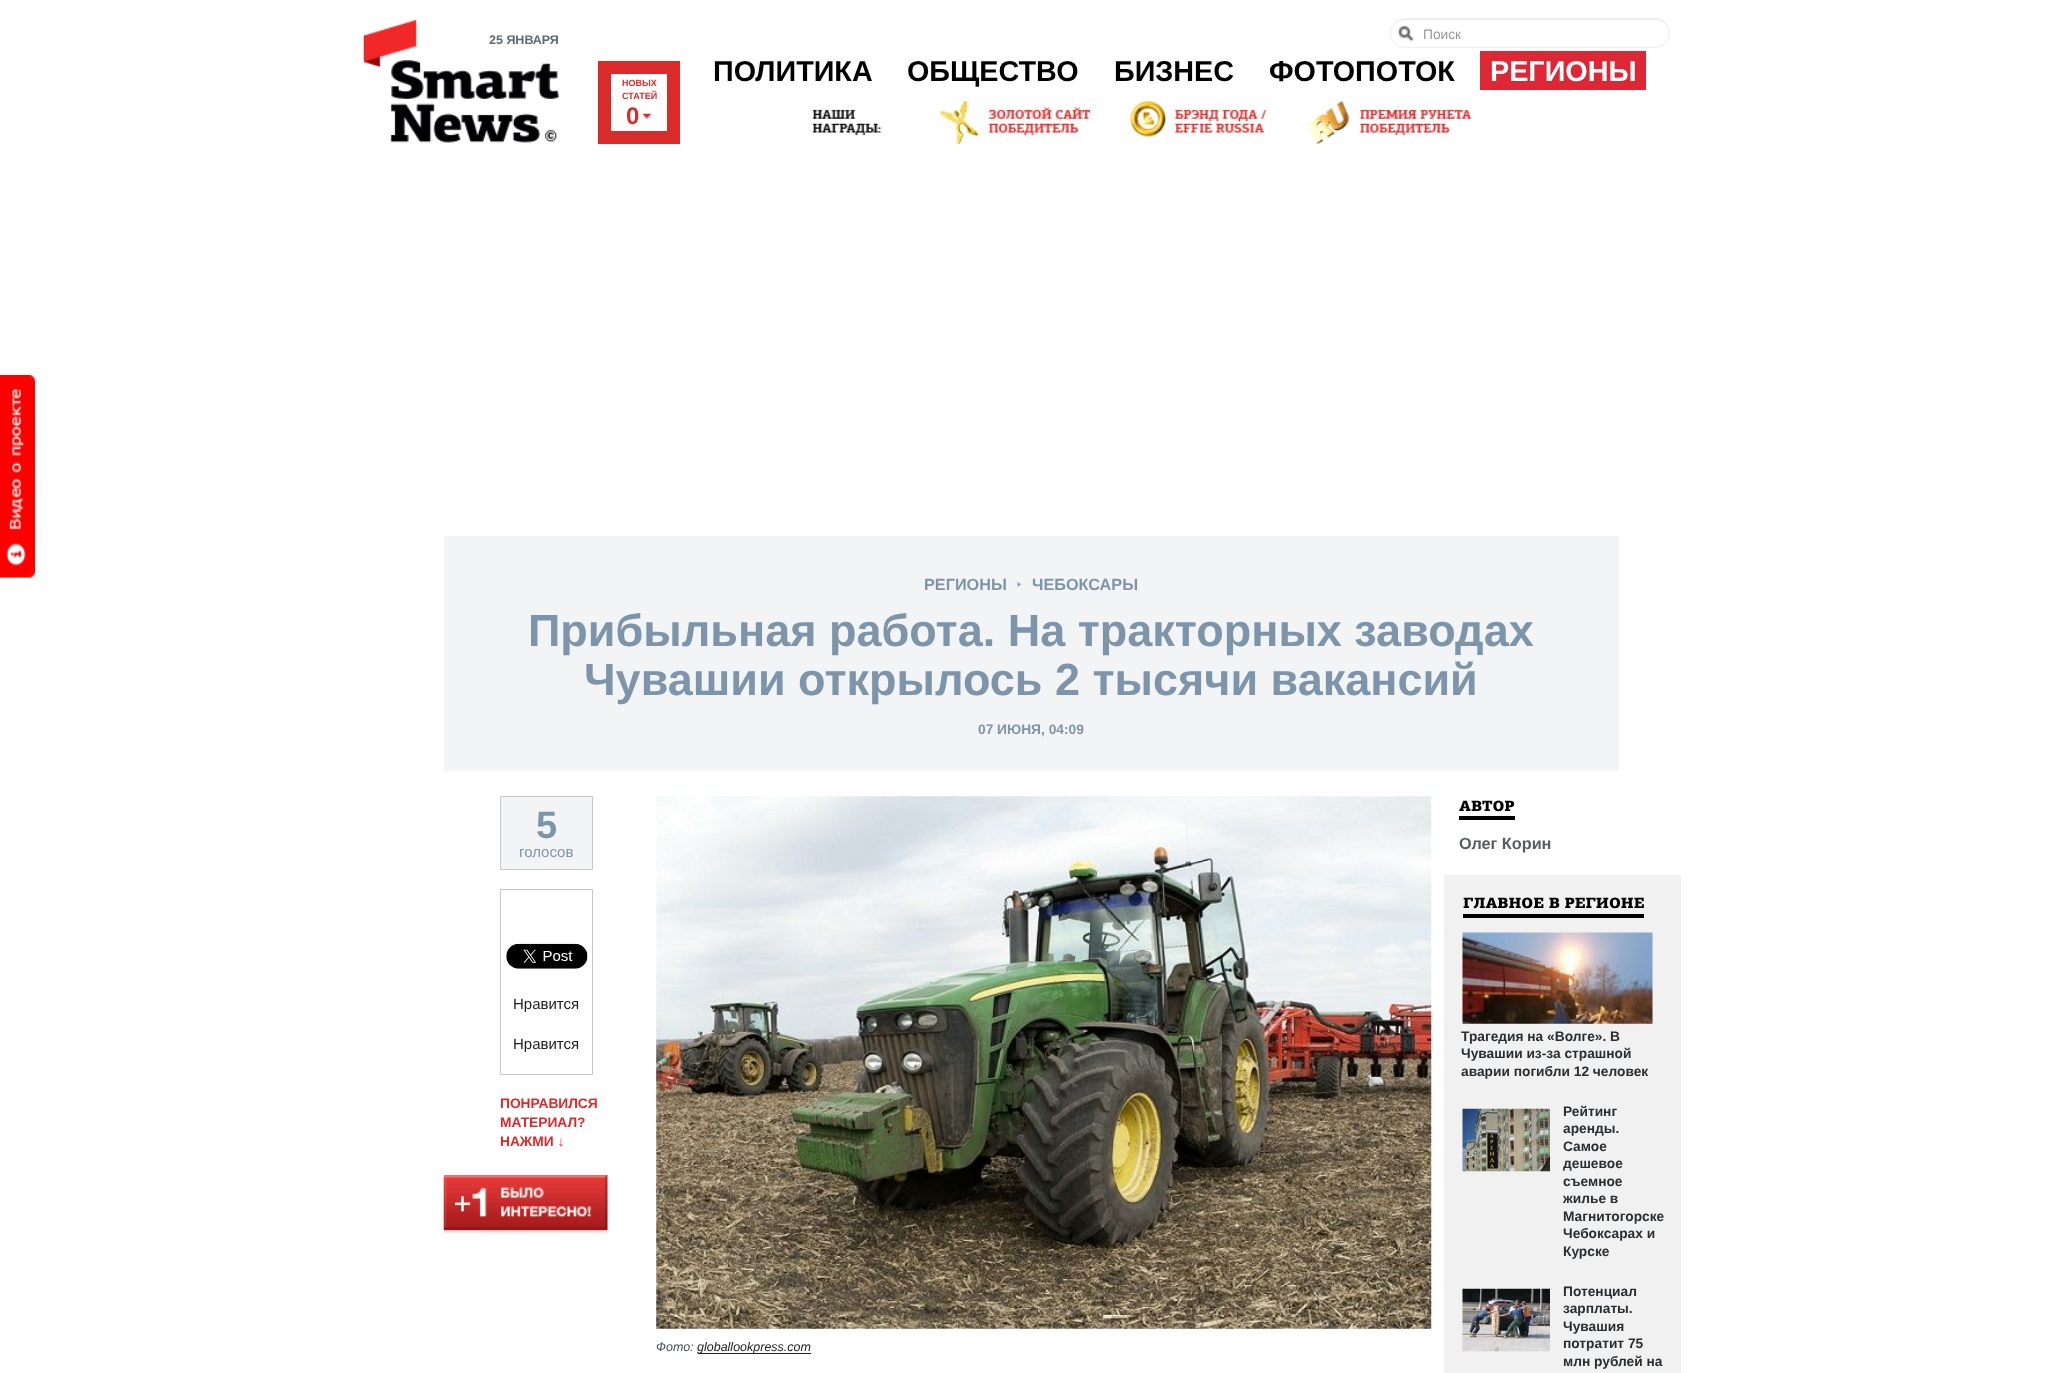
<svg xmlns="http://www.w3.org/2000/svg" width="2062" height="1373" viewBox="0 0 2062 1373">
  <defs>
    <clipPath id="clip1"><path d="M1563 1103h100v157H1563z"/></clipPath>
  </defs>
  <rect width="100%" height="100%" fill="#fff"/>
  <image x="0" y="375" width="35" height="203" href="img/1.png"/>
  <image x="390" y="60" width="169" height="83" href="img/3.png"/>
  <image x="363" y="20" width="54" height="48" href="img/2.png"/>
  <image x="1398" y="26" width="16" height="16" href="img/4.png"/>
  <path d="M1405 20H1655C1663 20 1669 26 1669 33C1669 26 1663 19 1656 19H1404C1397 19 1391 26 1391 33C1391 26 1397 20 1405 20Z" fill="#ececec"/>
  <rect x="1390.5" y="18.5" width="279" height="29" rx="14.5" fill="none" stroke="#ecf0f2"/>
  <path d="M1480 51h166v39H1480z" fill="#de2734"/>
  <path d="M604.5 67.5h69v70H604.5z" fill="none" stroke="#da2b2b" stroke-width="13"/>
  <image x="642" y="113" width="10" height="6" href="img/5.png"/>
  <image x="812" y="100" width="660" height="44" href="img/6.png"/>
  <path d="M444 536h1175v235H444z" fill="#f2f4f6"/>
  <image x="1017" y="582" width="5" height="5" href="img/7.png"/>
  <path d="M500.5 796.5h92v73H500.5z" fill="#f2f4f6" stroke="#c8c8c8"/>
  <path d="M500.5 889.5h92v185H500.5z" fill="none" stroke="#c8c8c8"/>
  <image x="506" y="943" width="82" height="26" href="img/8.png"/>
  <image x="442" y="1175" width="167" height="59" href="img/9.png"/>
  <path d="M1459 816h56v4H1459z" fill="#000"/>
  <image x="656" y="796" width="776" height="533" href="img/10.png"/>
  <path d="M698 1353h113v1H698z" fill="#222"/>
  <path d="M1444 875h237v498H1444z" fill="#f1f1f1"/>
  <path d="M1463 914h181v4H1463z" fill="#000"/>
  <image x="1462" y="932" width="191" height="92" href="img/11.png"/>
  <image x="1462" y="1108" width="88" height="64" href="img/12.png"/>
  <image x="1462" y="1288" width="88" height="64" href="img/13.png"/>
  <text x="489" y="44" font-family="Liberation Sans" font-size="12.5" font-weight="bold" fill="#5f6971">25 ЯНВАРЯ</text>
  <text x="1423" y="39" font-family="Liberation Sans" font-size="13.75" fill="#999">Поиск</text>
  <g font-family="Liberation Sans" font-size="28.75" font-weight="bold" fill="#000">
    <text x="713" y="81">ПОЛИТИКА</text>
    <text x="907" y="81">ОБЩЕСТВО</text>
    <text x="1114" y="81">БИЗНЕС</text>
    <text x="1269" y="81">ФОТОПОТОК</text>
  </g>
  <text x="1490" y="81" font-family="Liberation Sans" font-size="28.75" font-weight="bold" fill="#fff">РЕГИОНЫ</text>
  <g font-family="Liberation Sans" font-size="9" font-weight="bold" fill="#da2b2b">
    <text x="622" y="86">НОВЫХ</text>
    <text x="622" y="99">СТАТЕЙ</text>
  </g>
  <text x="626" y="124" font-family="Liberation Sans" font-size="24" font-weight="bold" fill="#da2b2b">0</text>
  <g font-family="Liberation Sans" font-size="16.25" font-weight="bold" fill="#7d95aa">
    <text x="924" y="590">РЕГИОНЫ</text>
    <text x="1032" y="590">ЧЕБОКСАРЫ</text>
  </g>
  <g font-family="Liberation Sans" font-size="45" font-weight="bold" fill="#7d95aa">
    <text x="528" y="646">Прибыльная работа. На тракторных заводах</text>
    <text x="584" y="695">Чувашии открылось 2 тысячи вакансий</text>
  </g>
  <text x="978" y="734" font-family="Liberation Sans" font-size="13.75" font-weight="bold" fill="#7d95aa">07 ИЮНЯ, 04:09</text>
  <text x="536" y="838" font-family="Liberation Sans" font-size="38" font-weight="bold" fill="#7d95aa">5</text>
  <text x="519" y="857" font-family="Liberation Sans" font-size="15" fill="#7d95aa">голосов</text>
  <g font-family="Liberation Sans" font-size="15" fill="#222">
    <text x="513" y="1009">Нравится</text>
    <text x="513" y="1049">Нравится</text>
  </g>
  <g font-family="Liberation Sans" font-size="13.75" font-weight="bold" fill="#da2b2b">
    <text x="500" y="1108">ПОНРАВИЛСЯ</text>
    <text x="500" y="1127">МАТЕРИАЛ?</text>
    <text x="500" y="1146">НАЖМИ ↓</text>
  </g>
  <text x="1459" y="811" font-family="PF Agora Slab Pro" font-size="15" font-weight="900" fill="#000">АВТОР</text>
  <text x="1459" y="849" font-family="Liberation Sans" font-size="16.25" font-weight="bold" fill="#595d60">Олег Корин</text>
  <text x="656" y="1351" font-family="Liberation Sans" font-size="12.5" font-style="italic" fill="#475058">Фото:</text>
  <text x="697" y="1351" font-family="Liberation Sans" font-size="12.5" font-style="italic" fill="#222">globallookpress.com</text>
  <text x="1463" y="908" font-family="PF Agora Slab Pro" font-size="15" font-weight="900" fill="#000">ГЛАВНОЕ В РЕГИОНЕ</text>
  <g font-family="Liberation Sans" font-size="13.75" font-weight="bold" fill="#2a2e31">
    <text x="1461" y="1041">Трагедия на «Волге». В</text>
    <text x="1461" y="1058">Чувашии из-за страшной</text>
    <text x="1461" y="1076">аварии погибли 12 человек</text>
    <text x="1563" y="1116">Рейтинг</text>
    <text x="1563" y="1133">аренды.</text>
    <text x="1563" y="1151">Самое</text>
  </g>
  <g clip-path="url(#clip1)">
    <text x="1563" y="1168" font-family="Liberation Sans" font-size="13.75" font-weight="bold" fill="#2a2e31">дешевое</text>
  </g>
  <text x="1563" y="1186" font-family="Liberation Sans" font-size="13.75" font-weight="bold" fill="#2a2e31">съемное</text>
  <g clip-path="url(#clip1)">
    <text x="1563" y="1203" font-family="Liberation Sans" font-size="13.75" font-weight="bold" fill="#2a2e31">жилье в</text>
  </g>
  <g font-family="Liberation Sans" font-size="13.75" font-weight="bold" fill="#2a2e31">
    <text x="1563" y="1221">Магнитогорске</text>
    <text x="1563" y="1238">Чебоксарах и</text>
    <text x="1563" y="1256">Курске</text>
    <text x="1563" y="1296">Потенциал</text>
    <text x="1563" y="1313">зарплаты.</text>
    <text x="1563" y="1331">Чувашия</text>
    <text x="1563" y="1348">потратит 75</text>
    <text x="1563" y="1366">млн рублей на</text>
  </g>
</svg>
